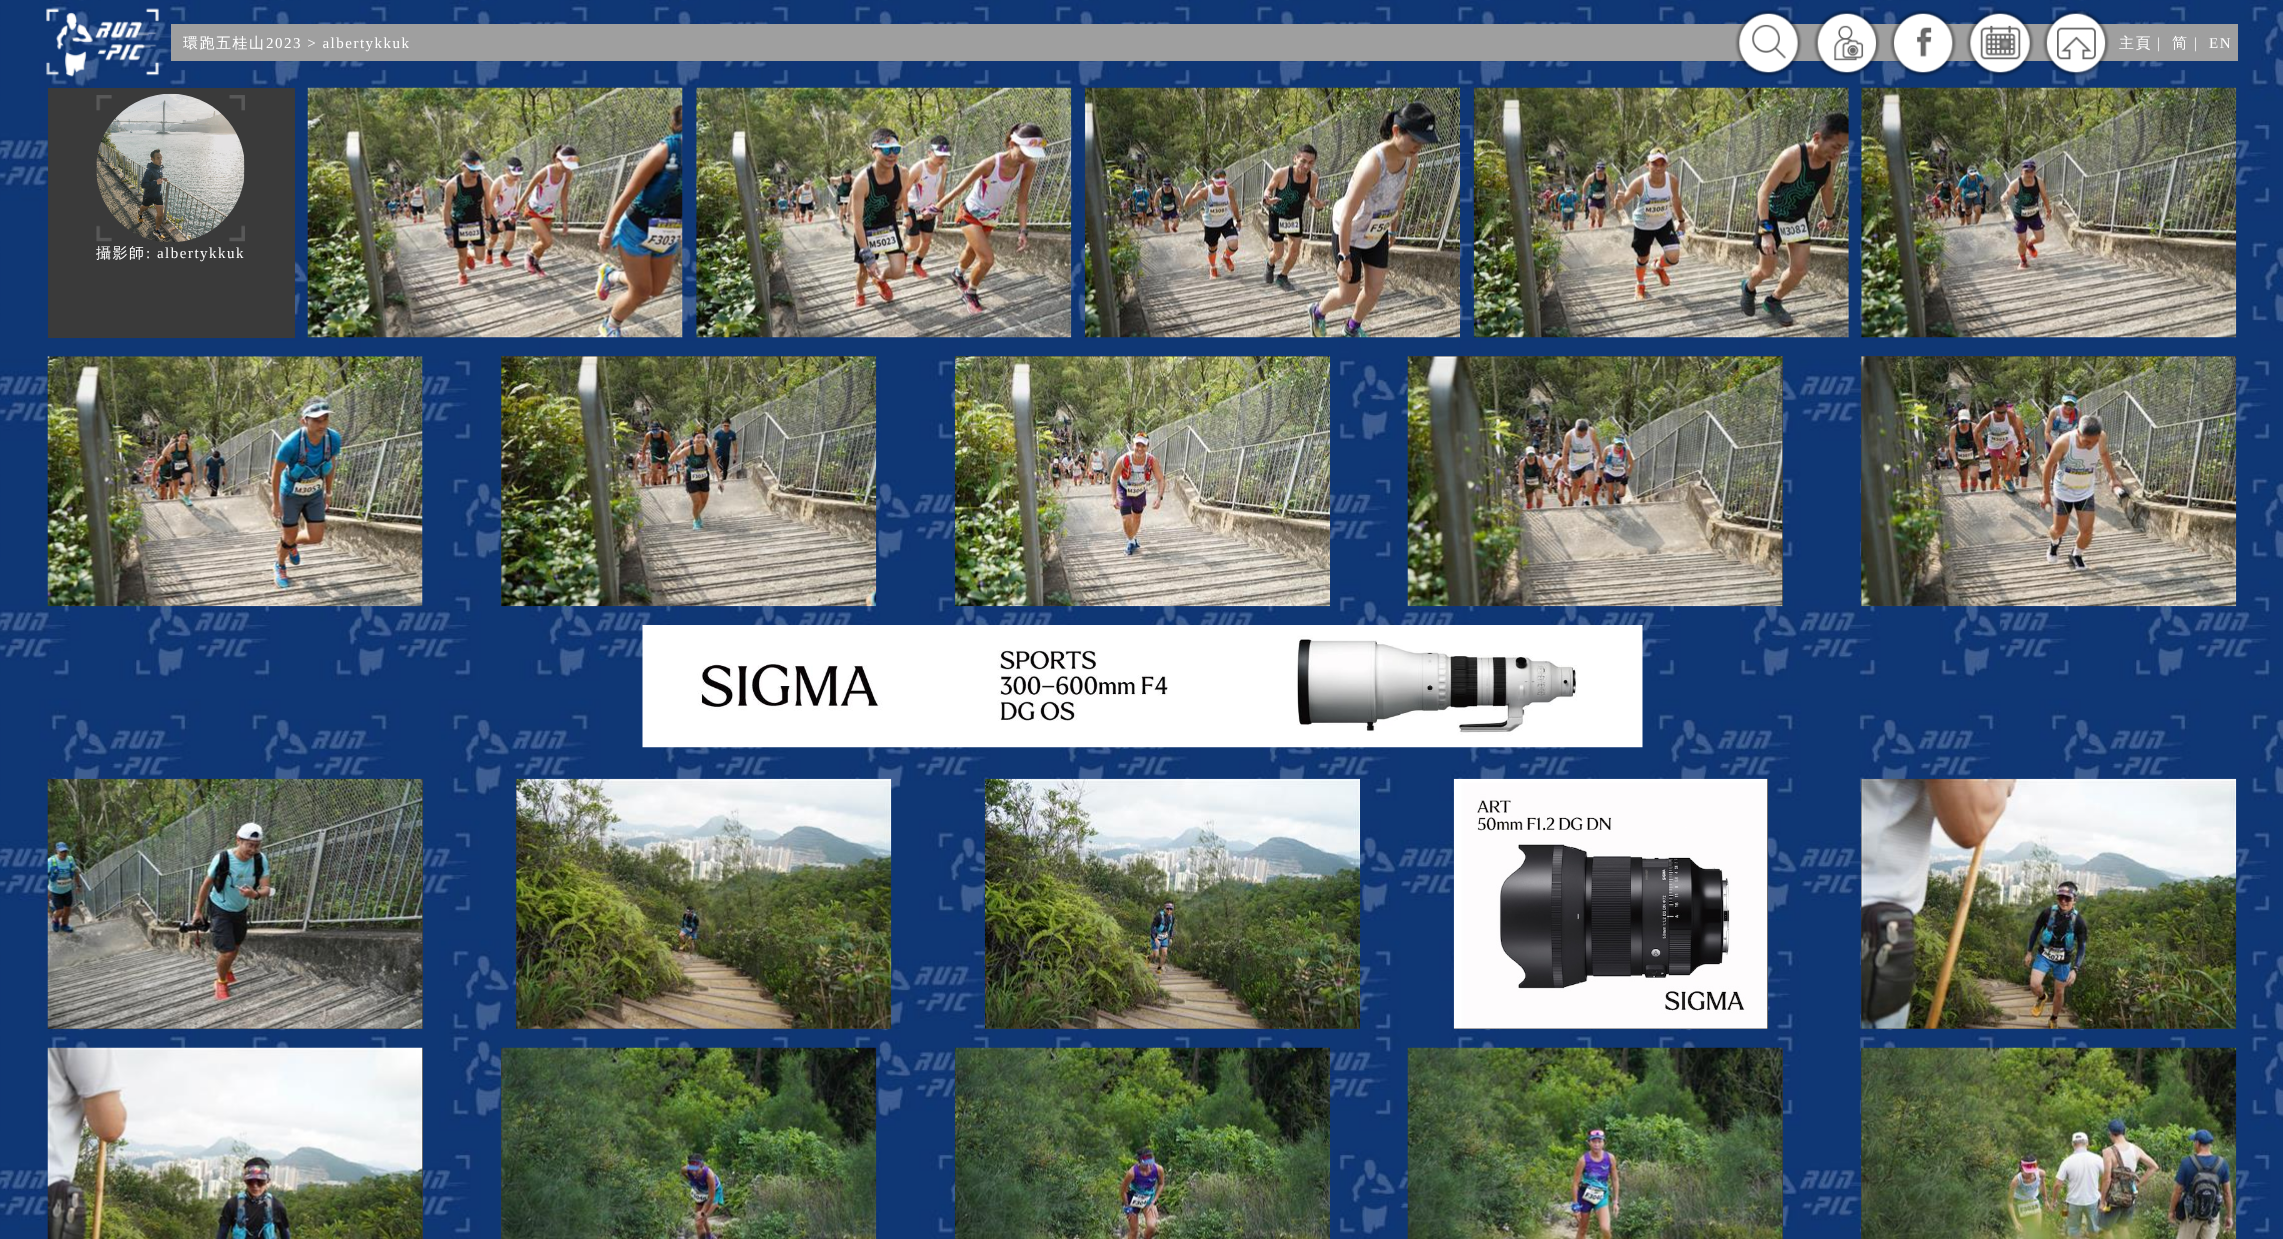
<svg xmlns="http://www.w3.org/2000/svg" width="2283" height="1239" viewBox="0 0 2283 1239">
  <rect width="100%" height="100%" fill="#fff"/>
  <image x="0" y="0" width="2283" height="1239" href="img/1.png"/>
  <image x="46" y="8" width="113" height="69" href="img/2.png"/>
  <path d="M171 24h2067v37H171z" fill="#9f9f9f"/>
  <image x="1735" y="10" width="67" height="67" href="img/3.png"/>
  <image x="1813" y="10" width="67" height="67" href="img/4.png"/>
  <image x="1890" y="10" width="67" height="67" href="img/5.png"/>
  <image x="1966" y="10" width="68" height="67" href="img/6.png"/>
  <image x="2042" y="10" width="68" height="67" href="img/7.png"/>
  <path d="M48 88h247v250H48z" fill="#3a3a3a"/>
  <image x="96" y="95" width="149" height="147" href="img/8.png"/>
  <image x="96" y="93" width="149" height="149" href="img/9.png"/>
  <image x="307" y="87" width="376" height="251" href="img/10.png"/>
  <image x="696" y="87" width="376" height="251" href="img/11.png"/>
  <image x="1085" y="87" width="375" height="251" href="img/12.png"/>
  <image x="1473" y="87" width="376" height="251" href="img/13.png"/>
  <image x="1861" y="87" width="376" height="251" href="img/14.png"/>
  <image x="47" y="356" width="376" height="251" href="img/15.png"/>
  <path d="M501 356h375v250H501z" fill="#3a3a3a"/>
  <image x="501" y="356" width="376" height="251" href="img/16.png"/>
  <path d="M955 356h375v1H955z" fill="#3a3a3a"/>
  <image x="955" y="356" width="375" height="251" href="img/17.png"/>
  <path d="M1408 356h375v250H1408z" fill="#3a3a3a"/>
  <image x="1407" y="356" width="376" height="251" href="img/18.png"/>
  <path d="M1861 356h375v250H1861z" fill="#3a3a3a"/>
  <image x="1861" y="356" width="376" height="251" href="img/19.png"/>
  <image x="642" y="625" width="1001" height="123" href="img/20.png"/>
  <path d="M48 779h375v250H48z" fill="#3a3a3a"/>
  <image x="47" y="778" width="376" height="251" href="img/21.png"/>
  <path d="M516 779h375v250H516z" fill="#3a3a3a"/>
  <image x="516" y="778" width="376" height="251" href="img/22.png"/>
  <path d="M985 1028h375v1H985z" fill="#3a3a3a"/>
  <image x="985" y="778" width="375" height="251" href="img/23.png"/>
  <path d="M1454 779h314v250H1454z" fill="#3a3a3a"/>
  <image x="1453" y="778" width="315" height="251" href="img/24.png"/>
  <path d="M1861 779h375v250H1861z" fill="#3a3a3a"/>
  <image x="1861" y="778" width="376" height="251" href="img/25.png"/>
  <path d="M422 1048h1v191H422z" fill="#3a3a3a"/>
  <image x="47" y="1047" width="376" height="192" href="img/26.png"/>
  <path d="M501 1048h1v191H501z" fill="#3a3a3a"/>
  <image x="501" y="1047" width="376" height="192" href="img/27.png"/>
  <image x="955" y="1047" width="375" height="192" href="img/28.png"/>
  <path d="M1782 1048h1v191H1782z" fill="#3a3a3a"/>
  <image x="1407" y="1047" width="376" height="192" href="img/29.png"/>
  <path d="M1861 1048h1v191H1861z" fill="#3a3a3a"/>
  <image x="1861" y="1047" width="376" height="192" href="img/30.png"/>
  <text x="183" y="48" font-family="WenQuanYi Zen Hei" font-size="15" font-weight="500" letter-spacing="1.5" fill="#fff">環跑五桂山</text>
  <text x="266" y="48" font-family="Liberation Serif" font-size="15" letter-spacing="1.5" fill="#fff">2023 &gt; albertykkuk</text>
  <text x="2119" y="48" font-family="WenQuanYi Zen Hei" font-size="15" font-weight="500" letter-spacing="1.5" fill="#fff">主頁</text>
  <text x="2157" y="48" font-family="Liberation Serif" font-size="15" letter-spacing="1.5" fill="#fff">|</text>
  <text x="2172" y="48" font-family="WenQuanYi Zen Hei" font-size="15" font-weight="500" letter-spacing="1.5" fill="#fff">简</text>
  <g font-family="Liberation Serif" font-size="15" letter-spacing="1.5" fill="#fff">
    <text x="2194" y="48">|</text>
    <text x="2209" y="48">EN</text>
  </g>
  <text x="96" y="258" font-family="WenQuanYi Zen Hei" font-size="15" font-weight="500" letter-spacing="1.5" fill="#fff">攝影師</text>
  <text x="146" y="258" font-family="Liberation Serif" font-size="15" letter-spacing="1.5" fill="#fff">: albertykkuk</text>
</svg>
